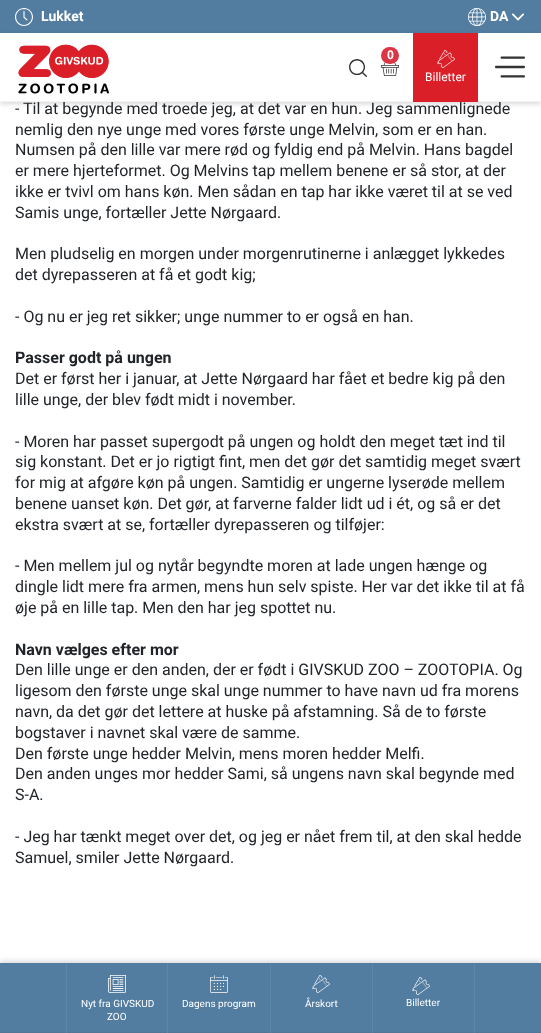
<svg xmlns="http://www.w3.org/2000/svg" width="541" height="1033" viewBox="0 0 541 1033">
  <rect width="100%" height="100%" fill="#fff"/>
  <path d="M0 0h541v33H0z" fill="#527da0"/>
  <image x="15" y="8" width="18" height="18" href="img/1.png"/>
  <image x="468" y="8" width="18" height="18" href="img/2.png"/>
  <image x="512" y="13" width="12" height="8" href="img/3.png"/>
  <path d="M0 35h541v69H0z" fill="#00000026" filter="blur(2.5px)"/>
  <path d="M0 33h541v68H0z" fill="#fff"/>
  <path d="M0 101h541v1H0z" fill="#f2f2f2"/>
  <image x="18" y="44" width="91" height="50" href="img/4.png"/>
  <image x="381" y="62" width="18" height="14" href="img/5.png"/>
  <rect x="381" y="47" width="18" height="17" rx="8.5" fill="#dc3545"/>
  <image x="349" y="59" width="18" height="18" href="img/6.png"/>
  <path d="M413 33h65v69H413z" fill="#db1f28"/>
  <image x="437" y="50" width="18" height="18" href="img/7.png"/>
  <image x="495" y="56" width="30" height="22" href="img/8.png"/>
  <path d="M0 961h541v70H0z" fill="#00000026" filter="blur(2.5px)"/>
  <path d="M0 963h541v69H0z" fill="#527da0"/>
  <path d="M0 1032h541v1H0z" fill="#4e7798"/>
  <path d="M167 963h1v70H167z" fill="#5f86a7"/>
  <path d="M66 963h1v70H66z" fill="#5f86a7"/>
  <image x="108" y="975" width="18" height="18" href="img/9.png"/>
  <path d="M270 963h1v70H270z" fill="#5f86a7"/>
  <image x="210" y="975" width="18" height="18" href="img/10.png"/>
  <path d="M372 963h1v70H372z" fill="#5f86a7"/>
  <image x="312" y="975" width="18" height="18" href="img/11.png"/>
  <path d="M474 963h1v70H474z" fill="#5f86a7"/>
  <image x="412" y="977" width="18" height="18" href="img/11.png"/>
  <g font-family="Roboto" font-size="14" font-weight="bold" fill="#fff">
    <text x="41" y="21">Lukket</text>
    <text x="490" y="21">DA</text>
  </g>
  <text x="387" y="59" font-family="Roboto" font-size="12" font-weight="bold" fill="#fff">0</text>
  <text x="425" y="81" font-family="Roboto" font-size="12" fill="#fff">Billetter</text>
  <g font-family="Roboto" font-size="16" fill="#212529">
    <text x="15" y="114">- Til at begynde med troede jeg, at det var en hun. Jeg sammenlignede</text>
    <text x="15" y="135">nemlig den nye unge med vores første unge Melvin, som er en han.</text>
    <text x="15" y="155">Numsen på den lille var mere rød og fyldig end på Melvin. Hans bagdel</text>
    <text x="15" y="176">er mere hjerteformet. Og Melvins tap mellem benene er så stor, at der</text>
    <text x="15" y="197">ikke er tvivl om hans køn. Men sådan en tap har ikke været til at se ved</text>
    <text x="15" y="218">Samis unge, fortæller Jette Nørgaard.</text>
    <text x="15" y="259">Men pludselig en morgen under morgenrutinerne i anlægget lykkedes</text>
    <text x="15" y="280">det dyrepasseren at få et godt kig;</text>
    <text x="15" y="322">- Og nu er jeg ret sikker; unge nummer to er også en han.</text>
  </g>
  <text x="15" y="363" font-family="Roboto" font-size="16" font-weight="bold" fill="#212529">Passer godt på ungen</text>
  <g font-family="Roboto" font-size="16" fill="#212529">
    <text x="15" y="384">Det er først her i januar, at Jette Nørgaard har fået et bedre kig på den</text>
    <text x="15" y="405">lille unge, der blev født midt i november.</text>
    <text x="15" y="447">- Moren har passet supergodt på ungen og holdt den meget tæt ind til</text>
    <text x="15" y="467">sig konstant. Det er jo rigtigt fint, men det gør det samtidig meget svært</text>
    <text x="15" y="488">for mig at afgøre køn på ungen. Samtidig er ungerne lyserøde mellem</text>
    <text x="15" y="509">benene uanset køn. Det gør, at farverne falder lidt ud i ét, og så er det</text>
    <text x="15" y="530">ekstra svært at se, fortæller dyrepasseren og tilføjer:</text>
    <text x="15" y="571">- Men mellem jul og nytår begyndte moren at lade ungen hænge og</text>
    <text x="15" y="592">dingle lidt mere fra armen, mens hun selv spiste. Her var det ikke til at få</text>
    <text x="15" y="613">øje på en lille tap. Men den har jeg spottet nu.</text>
  </g>
  <text x="15" y="655" font-family="Roboto" font-size="16" font-weight="bold" fill="#212529">Navn vælges efter mor</text>
  <g font-family="Roboto" font-size="16" fill="#212529">
    <text x="15" y="675">Den lille unge er den anden, der er født i GIVSKUD ZOO – ZOOTOPIA. Og</text>
    <text x="15" y="696">ligesom den første unge skal unge nummer to have navn ud fra morens</text>
    <text x="15" y="717">navn, da det gør det lettere at huske på afstamning. Så de to første</text>
    <text x="15" y="738">bogstaver i navnet skal være de samme.</text>
    <text x="15" y="759">Den første unge hedder Melvin, mens moren hedder Melfi.</text>
    <text x="15" y="779">Den anden unges mor hedder Sami, så ungens navn skal begynde med</text>
    <text x="15" y="800">S-A.</text>
    <text x="15" y="842">- Jeg har tænkt meget over det, og jeg er nået frem til, at den skal hedde</text>
    <text x="15" y="863">Samuel, smiler Jette Nørgaard.</text>
  </g>
  <g font-family="Roboto" font-size="10" fill="#fff">
    <text x="81" y="1007">Nyt fra GIVSKUD</text>
    <text x="107" y="1020">ZOO</text>
    <text x="182" y="1007">Dagens program</text>
    <text x="305" y="1007">Årskort</text>
    <text x="406" y="1006">Billetter</text>
  </g>
</svg>
